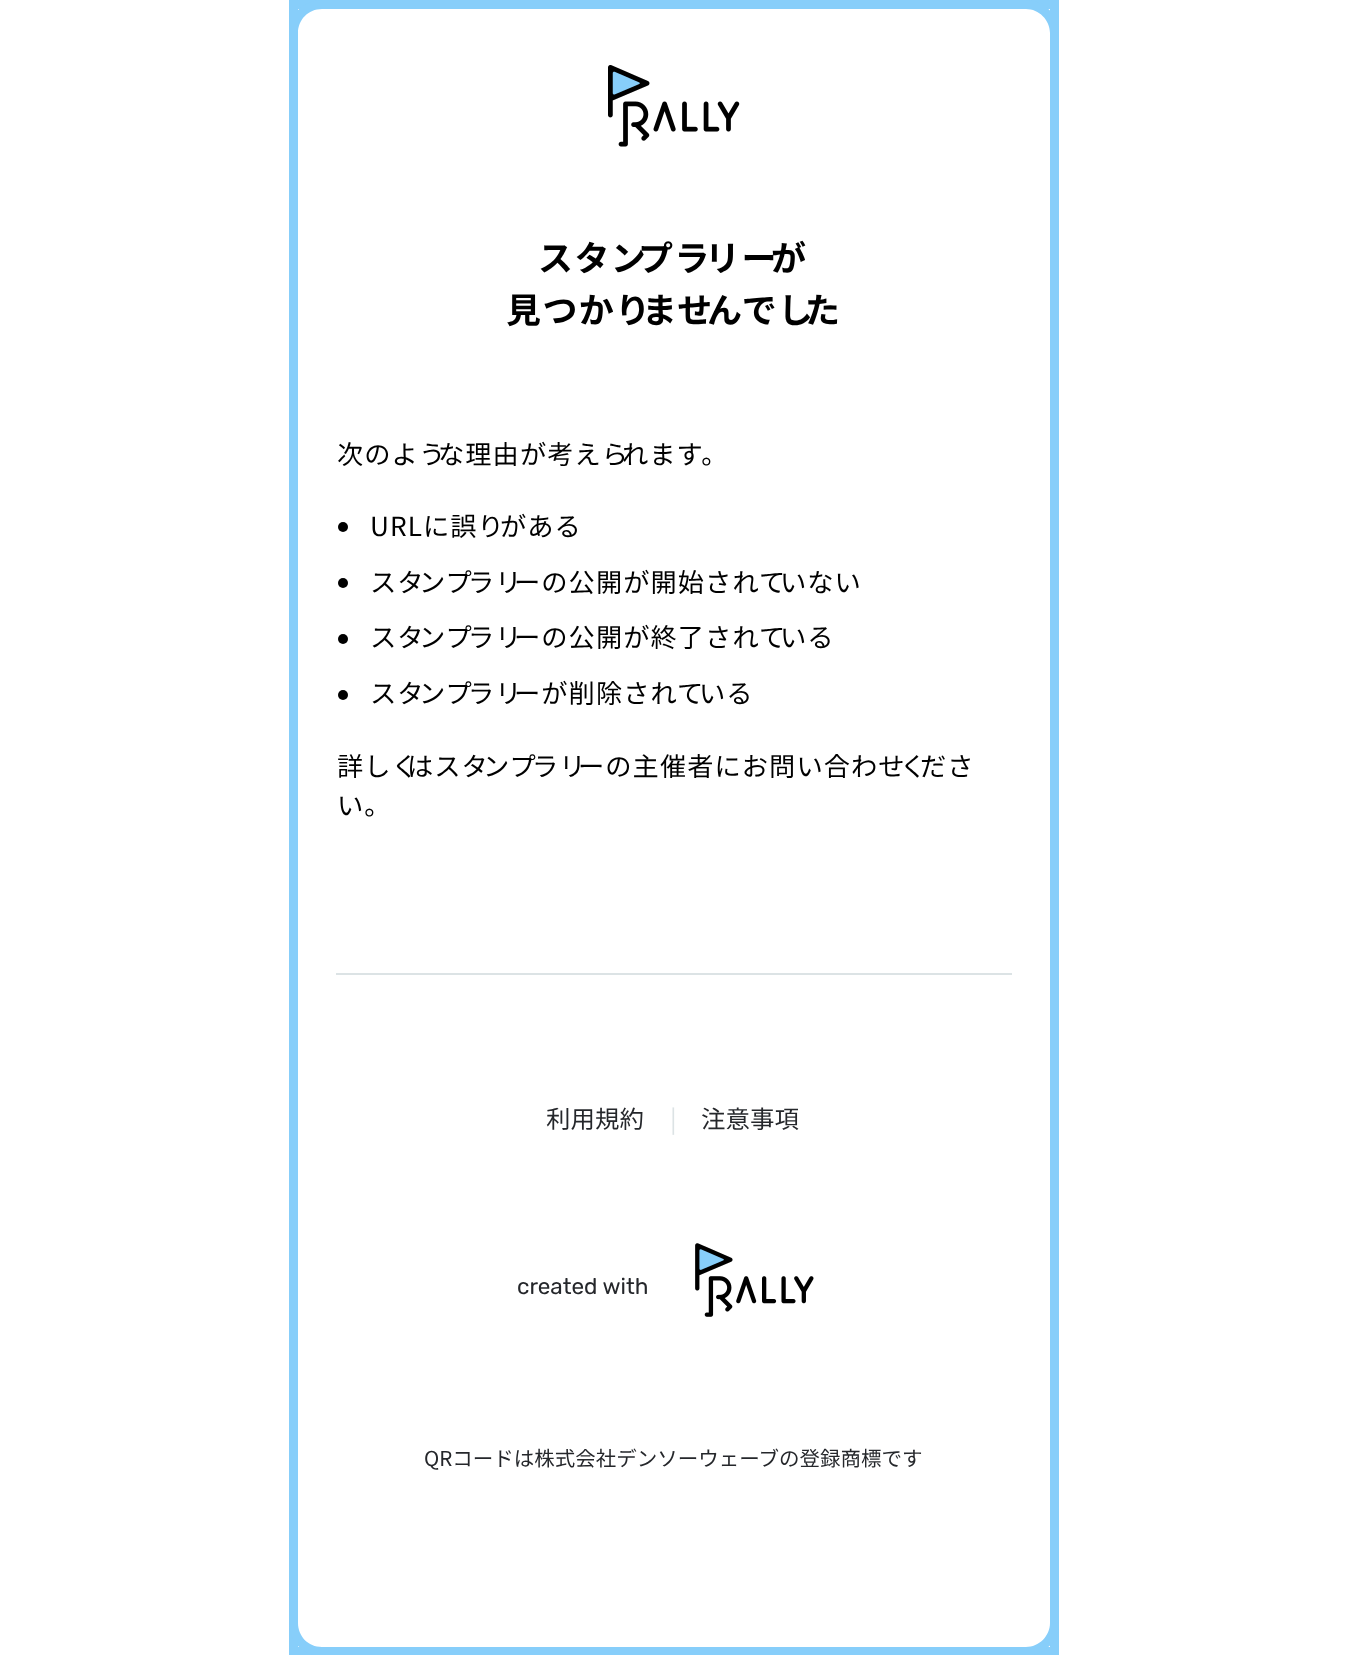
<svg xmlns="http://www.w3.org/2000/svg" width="1345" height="1655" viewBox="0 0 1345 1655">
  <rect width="100%" height="100%" fill="#fff"/>
  <path d="M298 0h752v9H298z" fill="#87cefa"/>
  <image x="608" y="65" width="132" height="82" href="img/1.png"/>
  <circle cx="343" cy="527" r="5" fill="#000"/>
  <circle cx="343" cy="583" r="5" fill="#000"/>
  <circle cx="343" cy="639" r="5" fill="#000"/>
  <circle cx="343" cy="695" r="5" fill="#000"/>
  <path d="M336 973h676v2H336z" fill="#dce3e5"/>
  <image x="695" y="1243" width="119" height="74" href="img/2.png"/>
  <g font-family="Noto Sans JP" font-size="35" font-weight="bold" letter-spacing="1.4" fill="#000">
    <text x="538" y="271">スタン</text>
    <text x="638" y="271">プラ</text>
    <text x="705" y="271">リー</text>
    <text x="771" y="271">が</text>
    <text x="506" y="323">見つかり</text>
    <text x="642" y="323">ませ</text>
    <text x="707" y="323">んでし</text>
    <text x="805" y="323">た</text>
  </g>
  <g font-family="Noto Sans JP" font-size="26.25" letter-spacing="1.05" fill="#000">
    <text x="337" y="464">次のよう</text>
    <text x="438" y="464">な理由が考えら</text>
    <text x="622" y="464">れます。</text>
    <text x="370" y="536">URLに誤り</text>
    <text x="500" y="536">がある</text>
    <text x="370" y="592">スタ</text>
    <text x="419" y="592">ンプ</text>
    <text x="468" y="592">ラリ</text>
    <text x="514" y="592">ーの公開が開始されて</text>
    <text x="780" y="592">いない</text>
    <text x="370" y="647">スタ</text>
    <text x="419" y="647">ンプ</text>
    <text x="468" y="647">ラリ</text>
    <text x="514" y="647">ーの公開が終了されて</text>
    <text x="780" y="647">いる</text>
    <text x="370" y="703">スタ</text>
    <text x="419" y="703">ンプ</text>
    <text x="468" y="703">ラリ</text>
    <text x="514" y="703">ーが削除されて</text>
    <text x="699" y="703">いる</text>
    <text x="337" y="776">詳しく</text>
    <text x="407" y="776">はスタ</text>
    <text x="483" y="776">ンプ</text>
    <text x="532" y="776">ラリ</text>
    <text x="578" y="776">ーの主催者にお問い合わせ</text>
    <text x="900" y="776">く</text>
    <text x="920" y="776">ださ</text>
    <text x="337" y="815">い。</text>
  </g>
  <text x="546" y="1128" font-family="Noto Sans JP" font-size="24.5" fill="#25272b">利用規約</text>
  <text x="670" y="1128" font-family="Noto Sans JP" font-size="24.5" fill="#dce3e5">|</text>
  <text x="701" y="1128" font-family="Noto Sans JP" font-size="24.5" fill="#25272b">注意事項</text>
  <text x="517" y="1294" font-family="Rubik" font-size="22.5" fill="#25272b">created with</text>
  <text x="424" y="1466" font-family="Noto Sans JP" font-size="20.5" fill="#25272b">QRコードは株式会社デンソーウェーブの登録商標です</text>
  <path d="M322 0H1026C1044 0 1059 15 1059 33V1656H289V33C289 15 303 0 322 0ZM322 9H1026C1039 9 1050 20 1050 33V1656H298V33C298 20 308 9 322 9Z" fill="#87cefa" fill-rule="evenodd"/>
  <path d="M298 1647h752v8H298z" fill="#87cefa"/>
  <path d="M289 0H1059V1623C1059 1641 1044 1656 1026 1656H322C303 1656 289 1641 289 1623ZM298 0H1050V1623C1050 1636 1039 1647 1026 1647H322C308 1647 298 1636 298 1623Z" fill="#87cefa" fill-rule="evenodd"/>
</svg>
